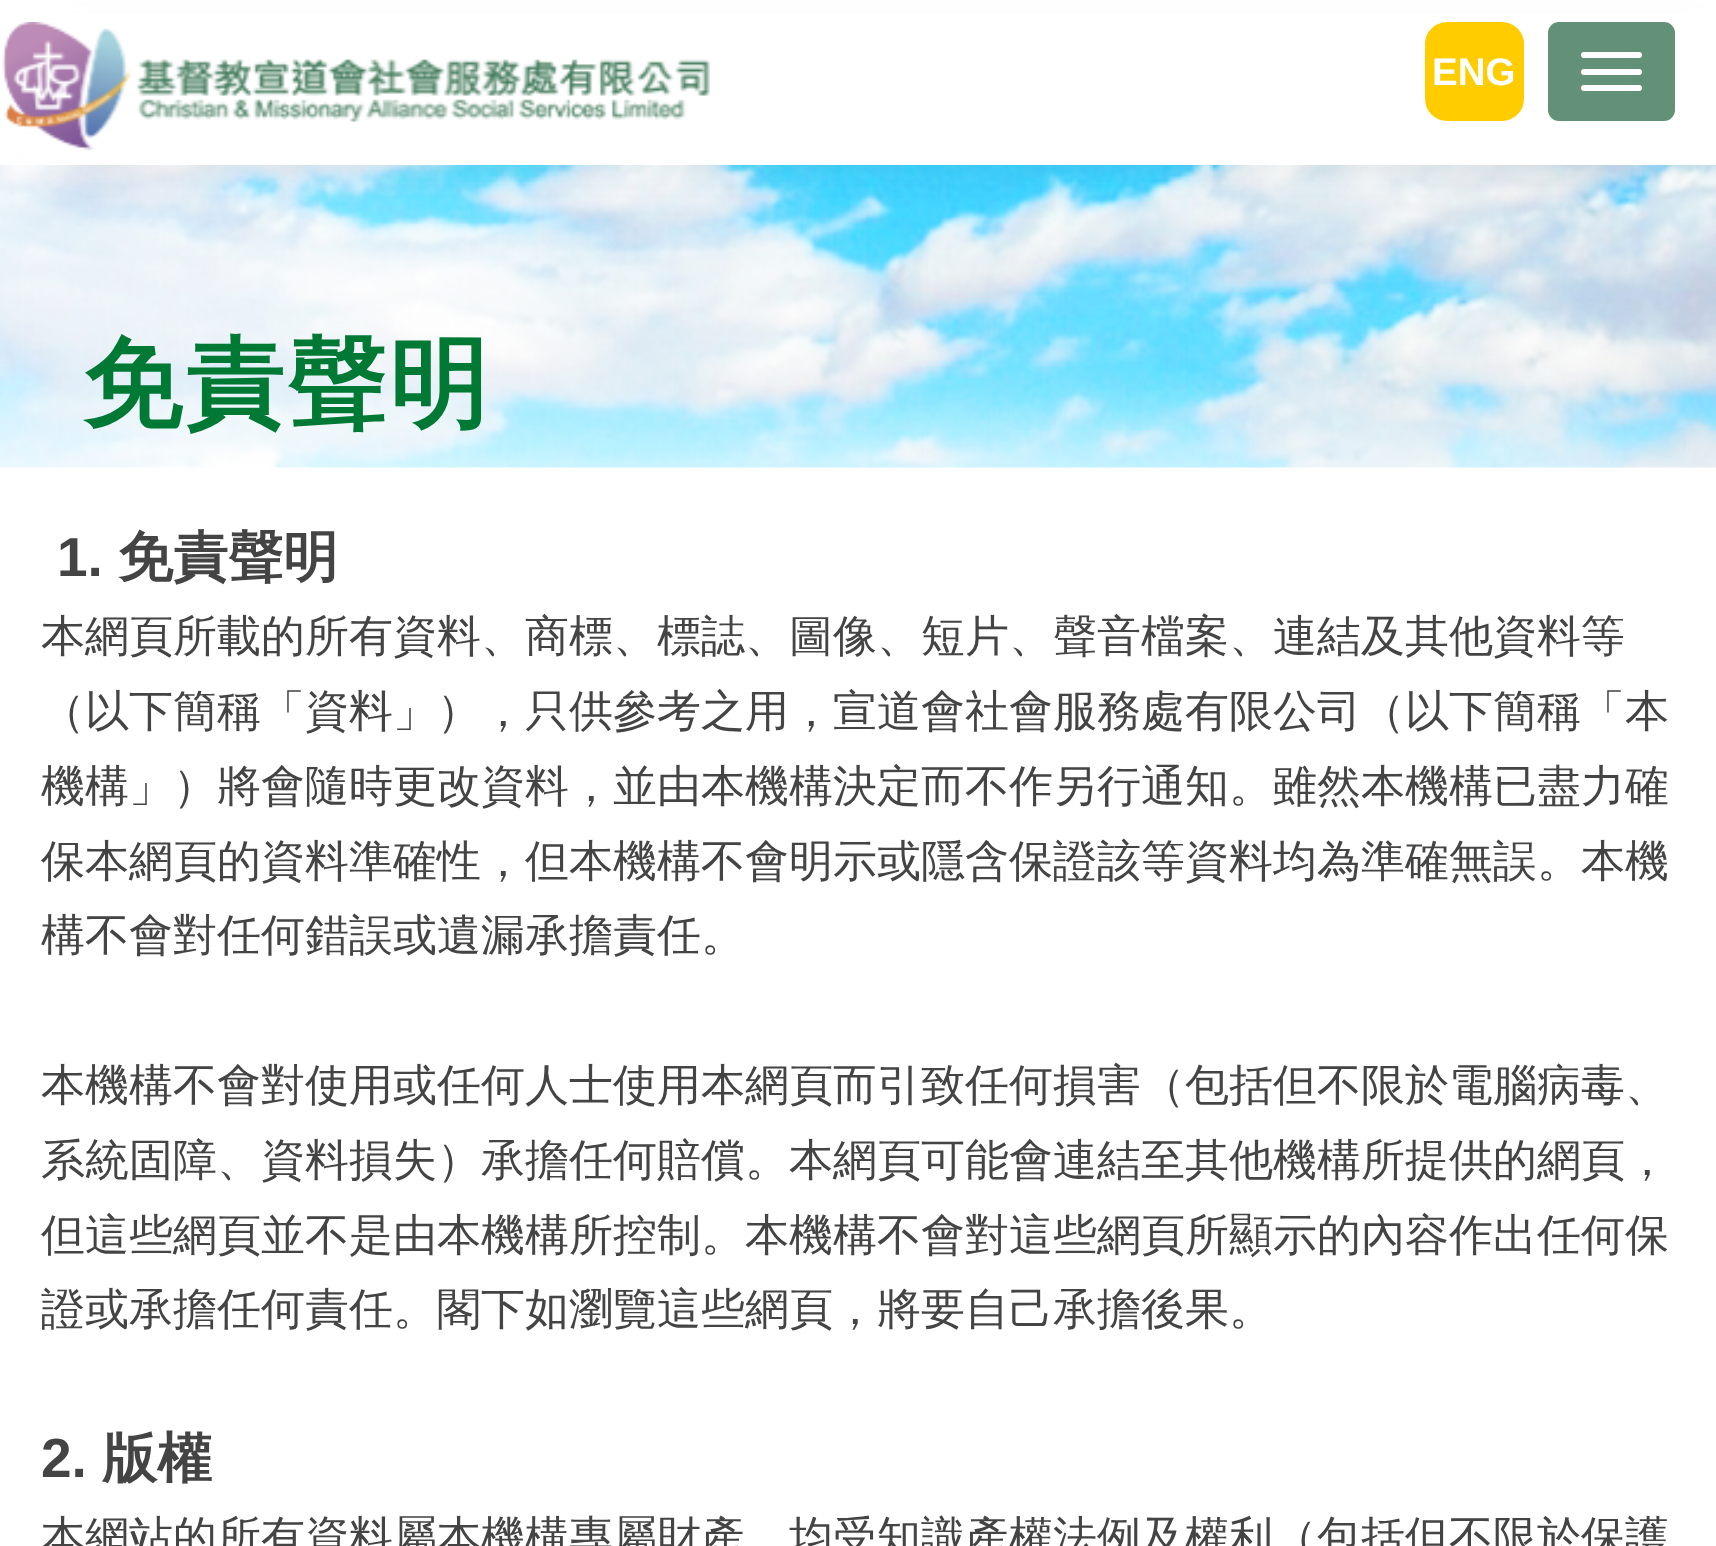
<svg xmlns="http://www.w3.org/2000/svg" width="1716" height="1546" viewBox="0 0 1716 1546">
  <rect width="100%" height="100%" fill="#fff"/>
  <image x="0" y="165" width="1716" height="303" href="img/2.png"/>
  <path d="M66 55h1639v88H66z" fill="#6666665c" filter="blur(25px)"/>
  <path d="M25 13h1691v152H25z" fill="#fff"/>
  <image x="2" y="22" width="708" height="129" href="img/1.png"/>
  <rect x="1425" y="22" width="99" height="99" rx="22" fill="#fc0"/>
  <rect x="1551" y="25" width="121" height="93" rx="8" fill="#629178" stroke="#629178" stroke-width="6"/>
  <rect x="1581" y="52" width="61" height="6" rx="3" fill="#fff"/>
  <rect x="1581" y="69" width="61" height="6" rx="3" fill="#fff"/>
  <rect x="1581" y="85" width="61" height="6" rx="3" fill="#fff"/>
  <text x="1432" y="85" font-family="Liberation Sans" font-size="38.5" font-weight="bold" fill="#fff">ENG</text>
  <text x="83" y="418" font-family="WenQuanYi Zen Hei" font-size="99" font-weight="bold" letter-spacing="3" fill="#007934">免責聲明</text>
  <text x="57" y="576" font-family="Liberation Sans" font-size="55" font-weight="bold" fill="#444">1.</text>
  <text x="118" y="576" font-family="WenQuanYi Zen Hei" font-size="55" font-weight="bold" fill="#444">免責聲明</text>
  <g font-family="WenQuanYi Zen Hei" font-size="44" font-weight="500" fill="#444">
    <text x="41" y="651">本網頁所載的所有資料、商標、標誌、圖像、短片、聲音檔案、連結及其他資料等</text>
    <text x="41" y="726">（以下簡稱「資料」），只供參考之用，宣道會社會服務處有限公司（以下簡稱「本</text>
    <text x="41" y="801">機構」）將會隨時更改資料，並由本機構決定而不作另行通知。雖然本機構已盡力確</text>
    <text x="41" y="876">保本網頁的資料準確性，但本機構不會明示或隱含保證該等資料均為準確無誤。本機</text>
    <text x="41" y="950">構不會對任何錯誤或遺漏承擔責任。</text>
    <text x="41" y="1100">本機構不會對使用或任何人士使用本網頁而引致任何損害（包括但不限於電腦病毒、</text>
    <text x="41" y="1175">系統固障、資料損失）承擔任何賠償。本網頁可能會連結至其他機構所提供的網頁，</text>
    <text x="41" y="1250">但這些網頁並不是由本機構所控制。本機構不會對這些網頁所顯示的內容作出任何保</text>
    <text x="41" y="1324">證或承擔任何責任。閣下如瀏覽這些網頁，將要自己承擔後果。</text>
  </g>
  <text x="41" y="1477" font-family="Liberation Sans" font-size="55" font-weight="bold" fill="#444">2.</text>
  <text x="102" y="1477" font-family="WenQuanYi Zen Hei" font-size="55" font-weight="bold" fill="#444">版權</text>
  <text x="41" y="1552" font-family="WenQuanYi Zen Hei" font-size="44" font-weight="500" fill="#444">本網站的所有資料屬本機構專屬財產，均受知識產權法例及權利（包括但不限於保護</text>
</svg>
